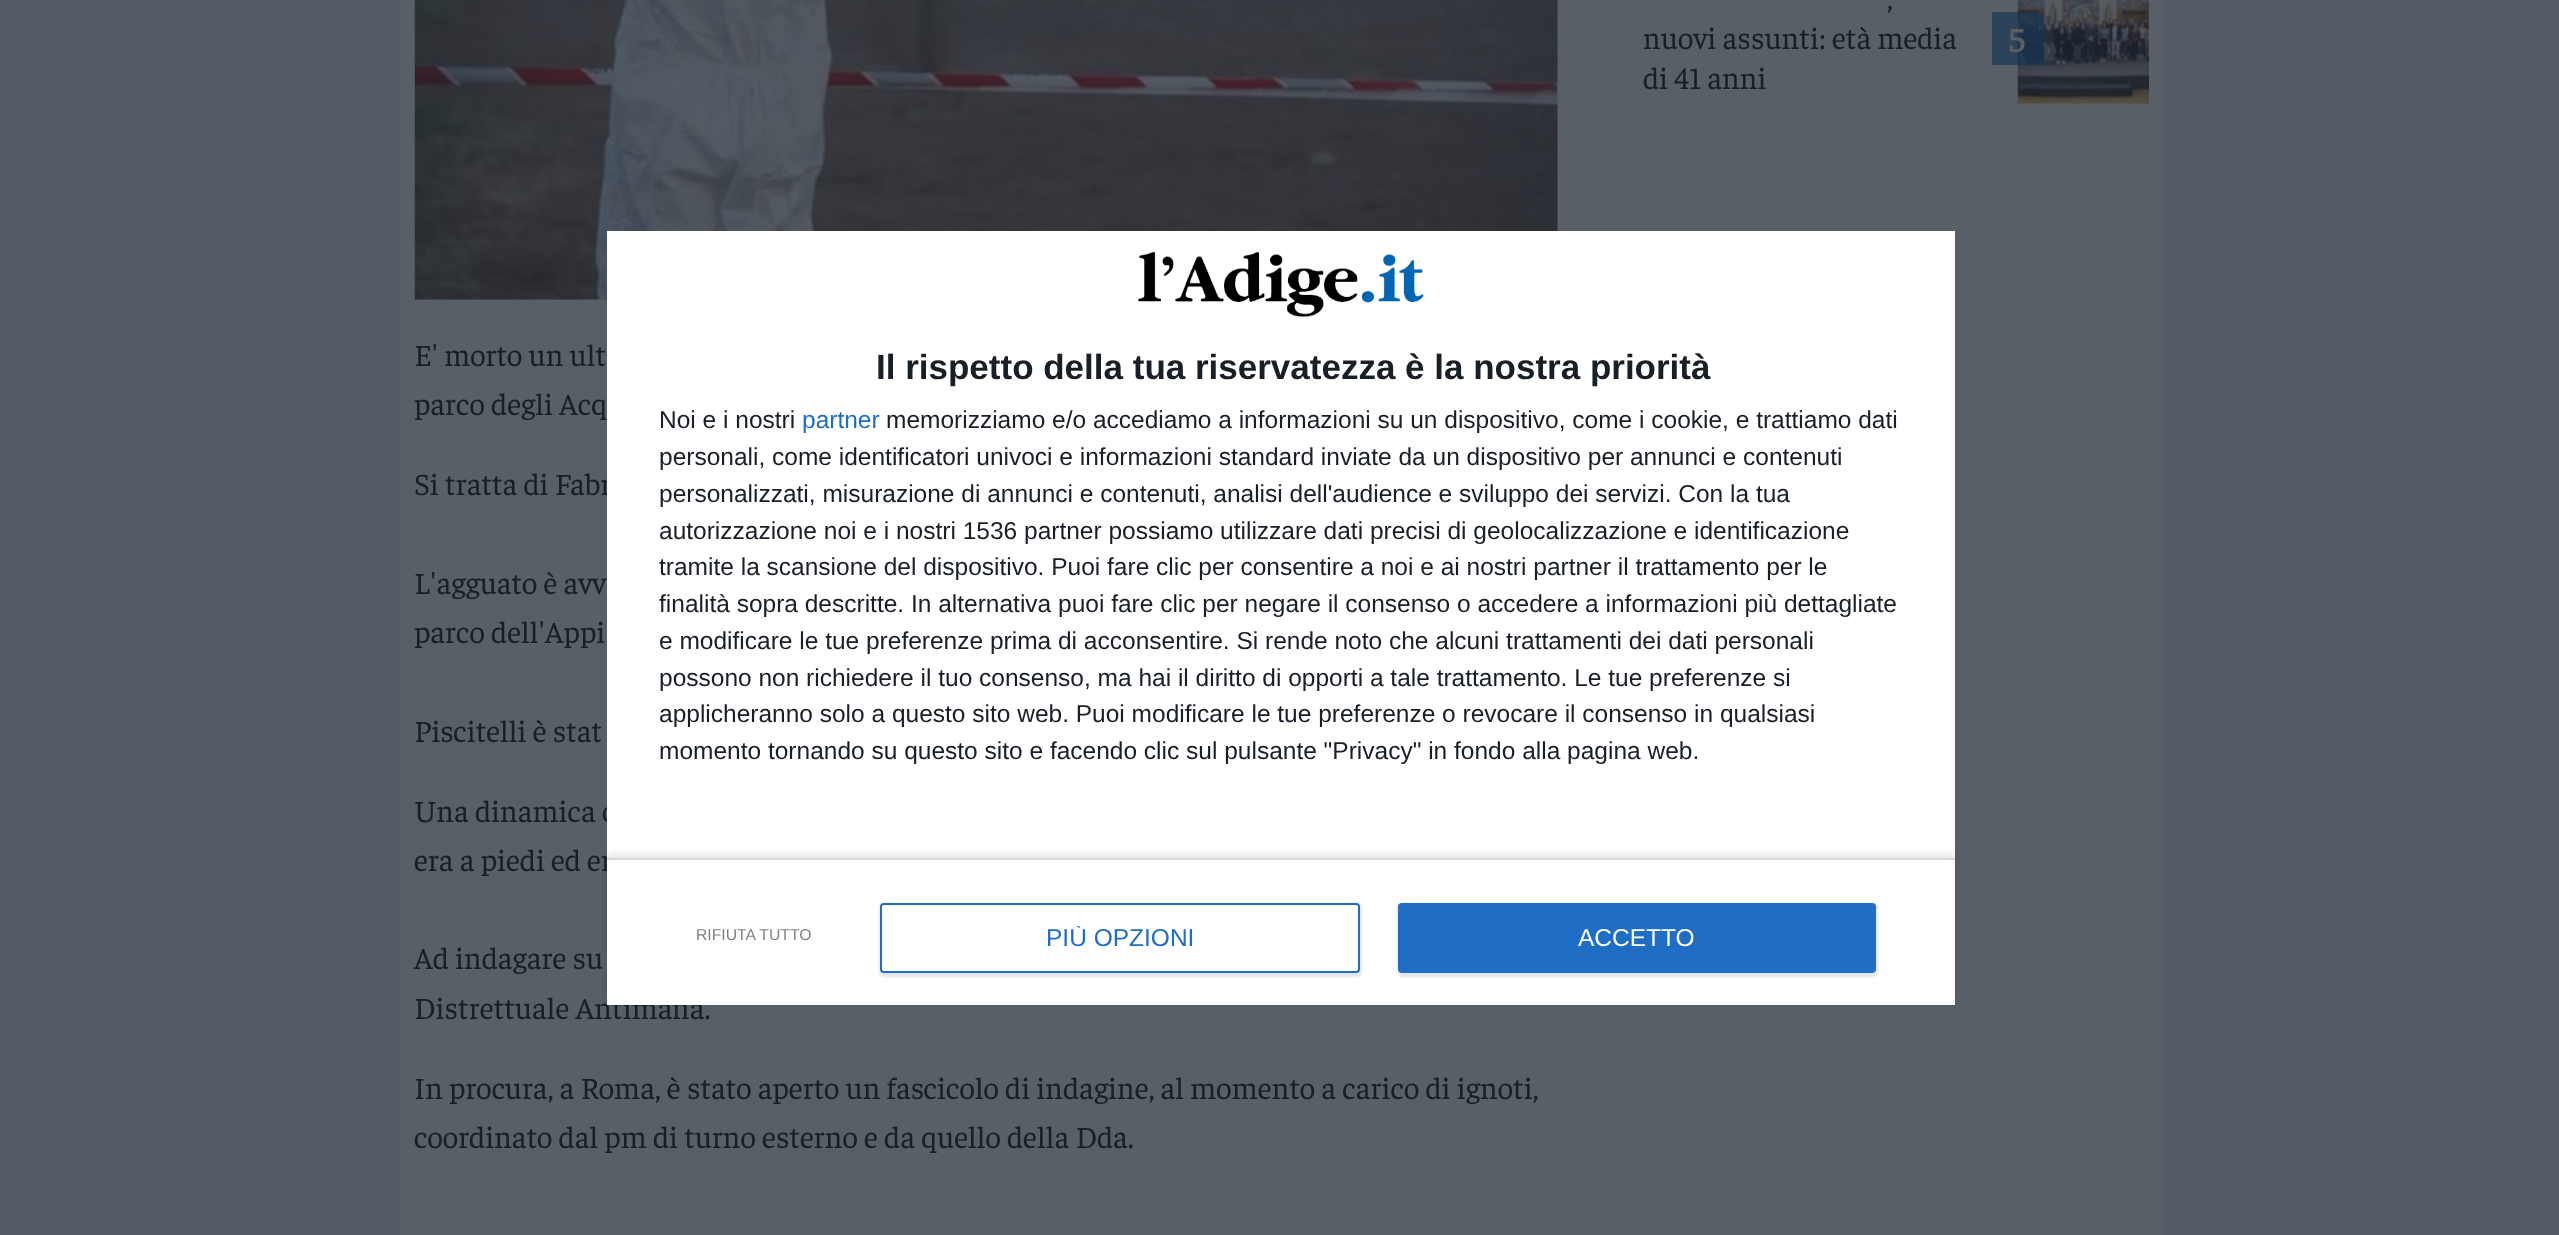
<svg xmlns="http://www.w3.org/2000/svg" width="2559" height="1235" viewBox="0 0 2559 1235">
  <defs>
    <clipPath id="clip1"><path d="M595 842H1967V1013H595ZM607 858H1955V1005H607Z" clip-rule="evenodd"/></clipPath>
    <clipPath id="clip2"><path d="M1047 926h147v24H1047z"/></clipPath>
  </defs>
  <rect width="100%" height="100%" fill="#555b64"/>
  <path d="M399 0h1764v1235H399z" fill="#595f67"/>
  <image x="2017" y="0" width="132" height="104" href="img/1.png"/>
  <path d="M1992 12h52v53H1992z" fill="#193854b3"/>
  <image x="414" y="0" width="1144" height="300" href="img/2.png"/>
  <g font-family="Faustina" font-size="30.8" font-weight="300" fill="#191f27">
    <text x="1887" y="9">,</text>
    <text x="1643" y="49">nuovi assunti: età media</text>
    <text x="1643" y="89">di 41 anni</text>
  </g>
  <text x="2009" y="52" font-family="Faustina" font-size="34" font-weight="bold" fill="#595f67">5</text>
  <g font-family="Faustina" font-size="30.8" font-weight="300" fill="#191f27">
    <text x="414" y="366">E' morto un ult</text>
    <text x="414" y="415">parco degli Acq</text>
    <text x="414" y="495">Si tratta di Fabr</text>
    <text x="414" y="594">L'agguato è avv</text>
    <text x="414" y="643">parco dell'Appi</text>
    <text x="414" y="742">Piscitelli è stat</text>
    <text x="414" y="822">Una dinamica c</text>
    <text x="414" y="871">era a piedi ed er</text>
    <text x="414" y="969">Ad indagare su</text>
    <text x="414" y="1019">Distrettuale Antimafia.</text>
    <text x="414" y="1099">In procura, a Roma, è stato aperto un fascicolo di indagine, al momento a carico di ignoti,</text>
    <text x="414" y="1148">coordinato dal pm di turno esterno e da quello della Dda.</text>
  </g>
  <path d="M607 231h1348v774H607z" fill="#fff"/>
  <image x="1138" y="251" width="286" height="67" href="img/3.png"/>
  <text x="876" y="379" font-family="Liberation Sans" font-size="35" font-weight="bold" fill="#191f27">Il rispetto della tua riservatezza è la nostra priorità</text>
  <text x="659" y="428" font-family="Liberation Sans" font-size="24.5" fill="#191f27">Noi e i nostri</text>
  <text x="802" y="428" font-family="Liberation Sans" font-size="24.5" fill="#206dc5">partner</text>
  <g font-family="Liberation Sans" font-size="24.5" fill="#191f27">
    <text x="886" y="428">memorizziamo e/o accediamo a informazioni su un dispositivo, come i cookie, e trattiamo dati</text>
    <text x="659" y="465">personali, come identificatori univoci e informazioni standard inviate da un dispositivo per annunci e contenuti</text>
    <text x="659" y="502">personalizzati, misurazione di annunci e contenuti, analisi dell'audience e sviluppo dei servizi. Con la tua</text>
    <text x="659" y="539">autorizzazione noi e i nostri 1536 partner possiamo utilizzare dati precisi di geolocalizzazione e identificazione</text>
    <text x="659" y="575">tramite la scansione del dispositivo. Puoi fare clic per consentire a noi e ai nostri partner il trattamento per le</text>
    <text x="659" y="612">finalità sopra descritte. In alternativa puoi fare clic per negare il consenso o accedere a informazioni più dettagliate</text>
    <text x="659" y="649">e modificare le tue preferenze prima di acconsentire. Si rende noto che alcuni trattamenti dei dati personali</text>
    <text x="659" y="686">possono non richiedere il tuo consenso, ma hai il diritto di opporti a tale trattamento. Le tue preferenze si</text>
    <text x="659" y="722">applicheranno solo a questo sito web. Puoi modificare le tue preferenze o revocare il consenso in qualsiasi</text>
    <text x="659" y="759">momento tornando su questo sito e facendo clic sul pulsante "Privacy" in fondo alla pagina web.</text>
  </g>
  <g clip-path="url(#clip1)">
    <path d="M607 854h1348v147H607z" fill="#0000001a" filter="blur(3.5px)"/>
  </g>
  <path d="M607 858h1348v2H607z" fill="#d8d8d8"/>
  <text x="696" y="940" font-family="Liberation Sans" font-size="15.75" fill="#808080">RIFIUTA TUTTO</text>
  <rect x="879" y="903" width="483" height="74" rx="5" fill="#0000001a" filter="blur(1px)"/>
  <rect x="881" y="904" width="478" height="68" rx="3" fill="#fff" stroke="#206dc5" stroke-width="2"/>
  <g clip-path="url(#clip2)">
    <text x="1046" y="946" font-family="Liberation Sans" font-size="24.5" fill="#206dc5">PIÙ OPZIONI</text>
  </g>
  <rect x="1397" y="903" width="481" height="74" rx="5" fill="#0000001a" filter="blur(1px)"/>
  <rect x="1398" y="903" width="478" height="70" rx="4" fill="#206dc5"/>
  <text x="1578" y="946" font-family="Liberation Sans" font-size="24.5" fill="#fff">ACCETTO</text>
</svg>
